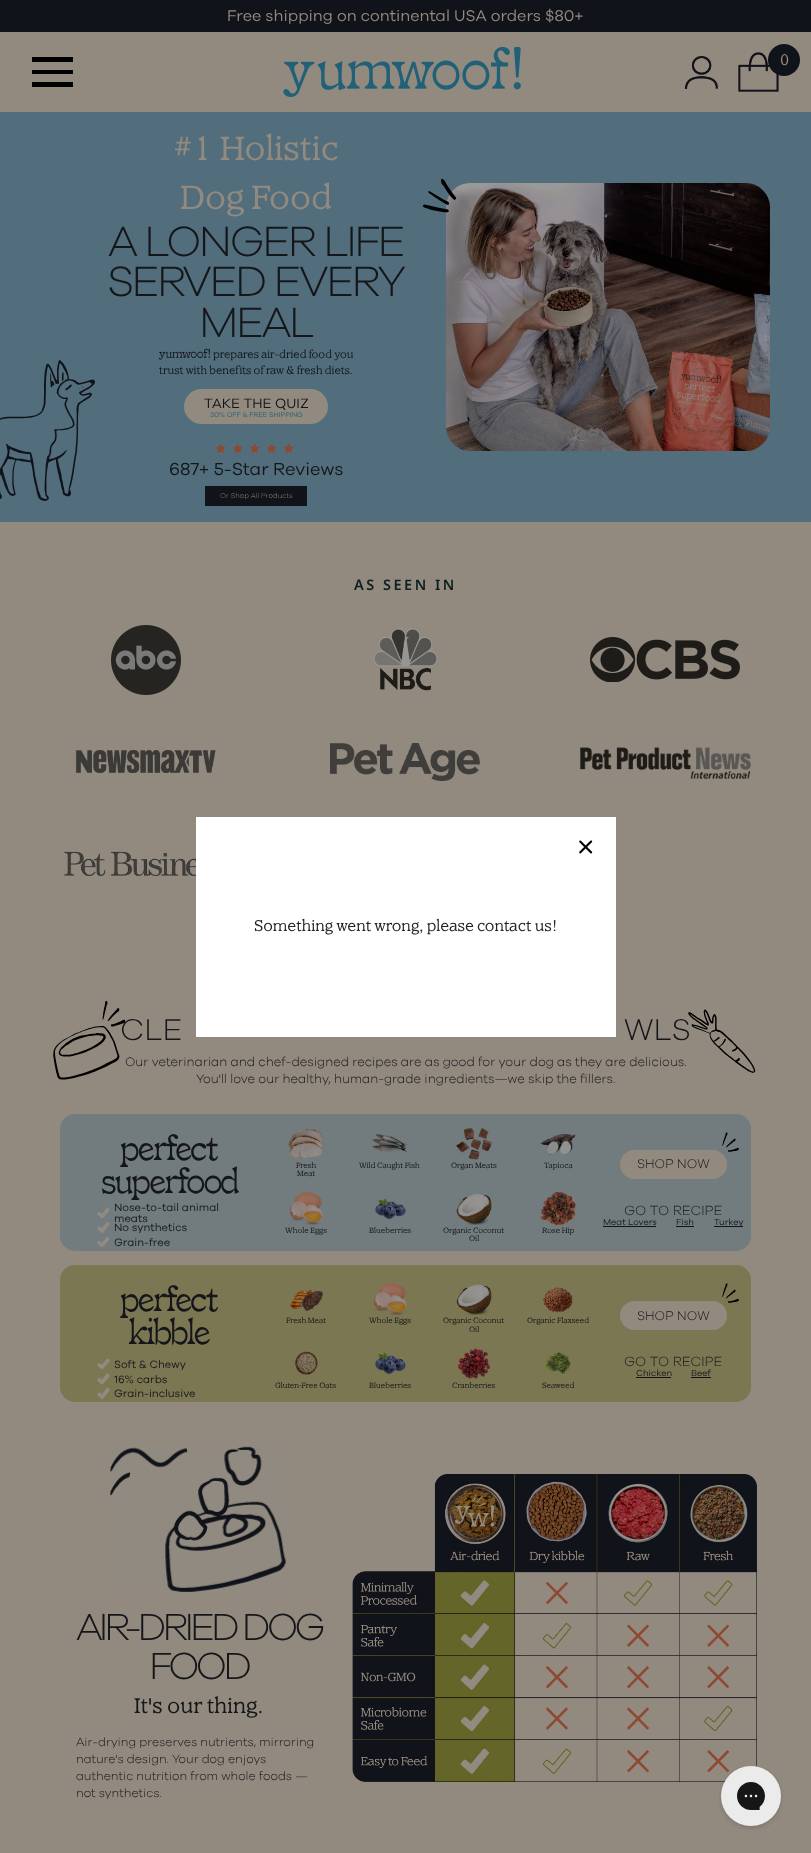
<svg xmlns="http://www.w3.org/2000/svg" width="811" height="1853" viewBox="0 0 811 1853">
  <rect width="100%" height="100%" fill="#11131a"/>
  <path d="M0 32h811v80H0z" fill="#928a7f"/>
  <path d="M32 57h41v5H32z" fill="#000"/>
  <path d="M32 70h41v4H32z" fill="#000"/>
  <path d="M32 82h41v5H32z" fill="#000"/>
  <image x="283" y="46" width="238" height="51" href="img/1.png"/>
  <image x="684" y="56" width="34" height="33" href="img/2.png"/>
  <image x="738" y="52" width="41" height="40" href="img/3.png"/>
  <circle cx="784" cy="60" r="16" fill="#11131a"/>
  <path d="M0 522h811v1331H0z" fill="#928a7f"/>
  <path d="M0 112h811v410H0z" fill="#526e7d"/>
  <image x="0" y="360" width="95" height="141" href="img/4.png"/>
  <image x="446" y="183" width="324" height="268" href="img/6.png"/>
  <image x="422" y="178" width="35" height="35" href="img/5.png"/>
  <image x="158" y="348" width="52" height="12" href="img/7.png"/>
  <rect x="184" y="389" width="144" height="35" rx="17.5" fill="#928a7f"/>
  <image x="216" y="444" width="10" height="9" href="img/8.png"/>
  <image x="233" y="444" width="10" height="9" href="img/8.png"/>
  <image x="250" y="444" width="10" height="9" href="img/8.png"/>
  <image x="267" y="444" width="10" height="9" href="img/8.png"/>
  <image x="284" y="444" width="10" height="9" href="img/8.png"/>
  <path d="M205 486h102v20H205z" fill="#11131a"/>
  <image x="111" y="625" width="70" height="70" href="img/9.png"/>
  <image x="373" y="628" width="65" height="63" href="img/10.png"/>
  <image x="590" y="637" width="150" height="45" href="img/11.png"/>
  <image x="75" y="750" width="141" height="23" href="img/12.png"/>
  <image x="330" y="743" width="150" height="38" href="img/13.png"/>
  <image x="580" y="747" width="171" height="32" href="img/14.png"/>
  <image x="64" y="851" width="132" height="25" href="img/15.png"/>
  <rect x="60" y="1114" width="691" height="137" rx="15" fill="#727c7e"/>
  <image x="97" y="1207" width="13" height="12" href="img/18.png"/>
  <image x="97" y="1221" width="13" height="13" href="img/19.png"/>
  <image x="97" y="1236" width="13" height="12" href="img/18.png"/>
  <image x="288" y="1129" width="36" height="30" href="img/20.png"/>
  <image x="372" y="1134" width="36" height="18" href="img/21.png"/>
  <image x="456" y="1128" width="36" height="32" href="img/22.png"/>
  <image x="540" y="1134" width="36" height="21" href="img/23.png"/>
  <image x="290" y="1191" width="33" height="34" href="img/24.png"/>
  <image x="375" y="1197" width="31" height="23" href="img/25.png"/>
  <image x="456" y="1193" width="36" height="32" href="img/26.png"/>
  <image x="540" y="1191" width="36" height="35" href="img/27.png"/>
  <rect x="620" y="1150" width="107" height="29" rx="14.5" fill="#928a7f"/>
  <image x="722" y="1132" width="17" height="20" href="img/28.png"/>
  <path d="M603 1226h53v1H603z" fill="#11131a"/>
  <path d="M676 1226h18v1H676z" fill="#11131a"/>
  <path d="M714 1226h29v1H714z" fill="#11131a"/>
  <rect x="60" y="1265" width="691" height="137" rx="15" fill="#7c7753"/>
  <image x="97" y="1358" width="13" height="12" href="img/29.png"/>
  <image x="97" y="1373" width="13" height="12" href="img/29.png"/>
  <image x="97" y="1387" width="13" height="13" href="img/30.png"/>
  <image x="289" y="1289" width="35" height="22" href="img/31.png"/>
  <image x="374" y="1282" width="33" height="33" href="img/32.png"/>
  <image x="456" y="1284" width="36" height="31" href="img/33.png"/>
  <image x="542" y="1287" width="31" height="26" href="img/34.png"/>
  <image x="295" y="1351" width="23" height="24" href="img/35.png"/>
  <image x="375" y="1352" width="31" height="23" href="img/36.png"/>
  <image x="458" y="1348" width="32" height="31" href="img/37.png"/>
  <image x="545" y="1352" width="26" height="22" href="img/38.png"/>
  <rect x="620" y="1301" width="107" height="29" rx="14.5" fill="#928a7f"/>
  <image x="722" y="1283" width="17" height="20" href="img/39.png"/>
  <path d="M636 1377h35v1H636z" fill="#11131a"/>
  <path d="M691 1377h20v1H691z" fill="#11131a"/>
  <image x="110" y="1446" width="177" height="146" href="img/40.png"/>
  <image x="352" y="1474" width="405" height="308" href="img/41.png"/>
  <path d="M196 817h420v220H196z" fill="#fff"/>
  <image x="579" y="840" width="14" height="14" href="img/42.png"/>
  <image x="719" y="1766" width="64" height="64" href="img/43.png"/>
  <text x="227" y="21" font-family="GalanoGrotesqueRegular" font-size="16" fill="#928a7f">Free shipping on continental USA orders $80+</text>
  <text x="780" y="65" font-family="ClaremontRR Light" font-size="16" font-weight="300" fill="#928a7f">0</text>
  <g font-family="ClaremontRR Light" font-size="35" font-weight="300" fill="#928a7f">
    <text x="173" y="160">#1 Holistic</text>
    <text x="180" y="209">Dog Food</text>
  </g>
  <g font-family="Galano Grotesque" font-size="43.75" font-weight="300" letter-spacing="-2.5" fill="#141619">
    <text x="108" y="256">A LONGER LIFE</text>
    <text x="107" y="296">SERVED EVERY</text>
    <text x="199" y="337">MEAL</text>
  </g>
  <g font-family="ClaremontRR Light" font-size="11.3" font-weight="300" fill="#141619">
    <text x="213" y="358">prepares air-dried food you</text>
    <text x="159" y="374">trust with benefits of raw &amp; fresh diets.</text>
  </g>
  <text x="204" y="408" font-family="GalanoGrotesqueRegular" font-size="14" fill="#141619">TAKE THE QUIZ</text>
  <text x="210" y="417" font-family="GalanoGrotesqueRegular" font-size="7.1" fill="#226177">30% OFF &amp; FREE SHIPPING</text>
  <text x="169" y="475" font-family="GalanoGrotesqueRegular" font-size="18" fill="#141619">687+ 5-Star Reviews</text>
  <text x="220" y="498" font-family="Galano Grotesque" font-size="7.25" font-weight="300" fill="#928a7f">Or Shop All Products</text>
  <text x="354" y="590" font-family="Noto Sans" font-size="14.5" font-weight="600" letter-spacing="2.5" fill="#0d2020">AS SEEN IN</text>
  <text x="120" y="1040" font-family="Galano Grotesque" font-size="31" font-weight="300" fill="#141619">CLE</text>
  <image x="53" y="1000" width="73" height="80" href="img/16.png"/>
  <text x="624" y="1040" font-family="Galano Grotesque" font-size="31" font-weight="300" fill="#141619">WLS</text>
  <image x="688" y="1009" width="68" height="64" href="img/17.png"/>
  <g font-family="Galano Grotesque" font-size="12.75" font-weight="300" fill="#141619">
    <text x="125" y="1066">Our veterinarian and chef-designed recipes are as good for your dog as they are delicious.</text>
    <text x="196" y="1083">You'll love our healthy, human-grade ingredients—we skip the fillers.</text>
  </g>
  <g font-family="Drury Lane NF" font-size="36.5" letter-spacing="-2" fill="#141619">
    <text x="120" y="1160">perfect</text>
    <text x="101" y="1193">superfood</text>
  </g>
  <g font-family="GalanoGrotesqueRegular" font-size="11" fill="#141619">
    <text x="114" y="1211">Nose-to-tail animal</text>
    <text x="114" y="1222">meats</text>
    <text x="114" y="1231">No synthetics</text>
    <text x="114" y="1246">Grain-free</text>
  </g>
  <g font-family="ClaremontRR Light" font-size="8" font-weight="300" fill="#141619">
    <text x="296" y="1168">Fresh</text>
    <text x="297" y="1176">Meat</text>
    <text x="359" y="1168">Wild Caught Fish</text>
    <text x="451" y="1168">Organ Meats</text>
    <text x="544" y="1168">Tapioca</text>
    <text x="285" y="1233">Whole Eggs</text>
    <text x="369" y="1233">Blueberries</text>
    <text x="443" y="1233">Organic Coconut</text>
    <text x="469" y="1241">Oil</text>
    <text x="542" y="1233">Rose Hip</text>
  </g>
  <text x="637" y="1168" font-family="Galano Grotesque" font-size="13" font-weight="300" fill="#141619">SHOP NOW</text>
  <text x="624" y="1215" font-family="Galano Grotesque" font-size="13.75" font-weight="300" fill="#141619">GO TO RECIPE</text>
  <g font-family="GalanoGrotesqueRegular" font-size="9" fill="#141619">
    <text x="603" y="1225">Meat Lovers</text>
    <text x="676" y="1225">Fish</text>
    <text x="714" y="1225">Turkey</text>
  </g>
  <g font-family="Drury Lane NF" font-size="36.5" letter-spacing="-2" fill="#141619">
    <text x="120" y="1311">perfect</text>
    <text x="128" y="1344">kibble</text>
  </g>
  <g font-family="GalanoGrotesqueRegular" font-size="11" fill="#141619">
    <text x="114" y="1368">Soft &amp; Chewy</text>
    <text x="114" y="1383">16% carbs</text>
    <text x="114" y="1397">Grain-inclusive</text>
  </g>
  <g font-family="ClaremontRR Light" font-size="8" font-weight="300" fill="#141619">
    <text x="286" y="1323">Fresh Meat</text>
    <text x="369" y="1323">Whole Eggs</text>
    <text x="443" y="1323">Organic Coconut</text>
    <text x="469" y="1332">Oil</text>
    <text x="527" y="1323">Organic Flaxseed</text>
    <text x="275" y="1388">Gluten-Free Oats</text>
    <text x="369" y="1388">Blueberries</text>
    <text x="452" y="1388">Cranberries</text>
    <text x="542" y="1388">Seaweed</text>
  </g>
  <text x="637" y="1320" font-family="Galano Grotesque" font-size="13" font-weight="300" fill="#141619">SHOP NOW</text>
  <text x="624" y="1366" font-family="Galano Grotesque" font-size="13.75" font-weight="300" fill="#141619">GO TO RECIPE</text>
  <g font-family="GalanoGrotesqueRegular" font-size="9" fill="#141619">
    <text x="636" y="1376">Chicken</text>
    <text x="691" y="1376">Beef</text>
  </g>
  <g font-family="Galano Grotesque" font-size="39" font-weight="300" letter-spacing="-4" fill="#141619">
    <text x="76" y="1640">AIR-DRIED DOG</text>
    <text x="149" y="1679">FOOD</text>
  </g>
  <text x="134" y="1713" font-family="ClaremontRR Light" font-size="22" font-weight="300" fill="#141619">It s our thing.</text>
  <text x="148" y="1713" font-family="GalanoGrotesqueRegular" font-size="22" fill="#141619">'</text>
  <g font-family="Galano Grotesque" font-size="12.2" font-weight="300" fill="#141619">
    <text x="76" y="1746">Air-drying preserves nutrients, mirroring</text>
    <text x="76" y="1763">nature's design. Your dog enjoys</text>
    <text x="76" y="1780">authentic nutrition from whole foods —</text>
    <text x="76" y="1797">not synthetics.</text>
  </g>
  <text x="254" y="931" font-family="ClaremontRR Light" font-size="16" font-weight="300" fill="#212529">Something went wrong, please contact us!</text>
</svg>
